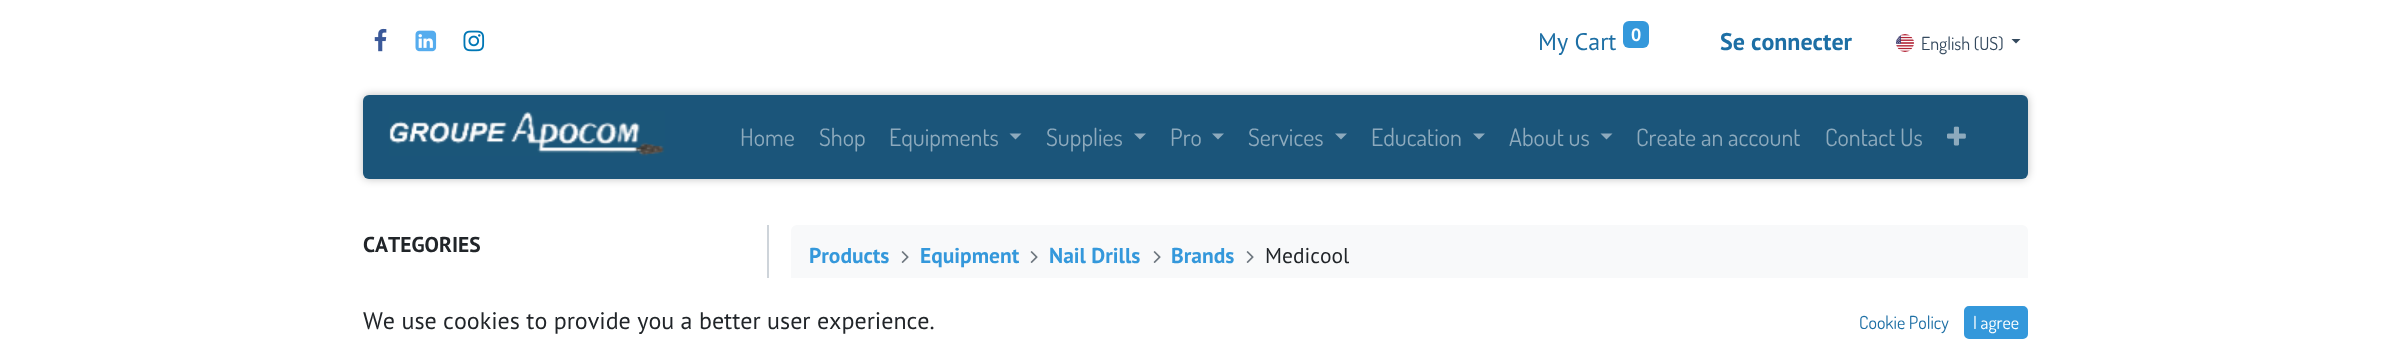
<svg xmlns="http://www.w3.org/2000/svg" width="2391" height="361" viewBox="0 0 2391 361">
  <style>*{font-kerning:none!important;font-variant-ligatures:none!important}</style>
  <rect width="100%" height="100%" fill="#fff"/>
  <image x="374" y="28" width="13" height="24" href="img/1.png"/>
  <image x="415" y="30" width="22" height="22" href="img/2.png"/>
  <image x="463" y="30" width="22" height="22" href="img/3.png"/>
  <rect x="1623" y="21" width="26" height="27" rx="6" fill="#3498db"/>
  <image x="1896" y="34" width="18" height="18" href="img/4.png"/>
  <path d="M2011.5 39H2020.5L2016 43.5Z" fill="#34495e"/>
  <rect x="363" y="95" width="1665" height="84" rx="6" fill="#00000040" filter="blur(4px)"/>
  <rect x="363" y="95" width="1665" height="84" rx="6" fill="#1b557a"/>
  <image x="389" y="111" width="276" height="45" href="img/5.png"/>
  <path d="M1009.5 133.5H1021.5L1015.5 139.5Z" fill="#8daabd"/>
  <path d="M1134 133.5H1146L1140 139.5Z" fill="#8daabd"/>
  <path d="M1212 133.5H1224L1218 139.5Z" fill="#8daabd"/>
  <path d="M1335 133.5H1347L1341 139.5Z" fill="#8daabd"/>
  <path d="M1473 133.5H1485L1479 139.5Z" fill="#8daabd"/>
  <path d="M1600.5 133.5H1612.5L1606.5 139.5Z" fill="#8daabd"/>
  <image x="1947" y="126" width="19" height="20" href="img/6.png"/>
  <path d="M767 225h2v53H767z" fill="#ced4da"/>
  <rect x="791" y="225" width="1237" height="63" rx="6" fill="#f8f9fa"/>
  <image x="901" y="251" width="8" height="12" href="img/7.png"/>
  <image x="1030" y="251" width="8" height="12" href="img/7.png"/>
  <image x="1153" y="251" width="8" height="12" href="img/7.png"/>
  <image x="1246" y="251" width="8" height="12" href="img/7.png"/>
  <path d="M791 278h1237v10H791z" fill="#fff"/>
  <rect x="1965" y="307" width="62" height="31" rx="4" fill="#3498db" stroke="#3498db" stroke-width="2"/>
  <text x="1538" y="50" font-family="PT Sans" font-size="24" fill="#1d6fa5">My Cart</text>
  <text x="1631" y="41" font-family="PT Sans" font-size="18" font-weight="bold" fill="#fff">0</text>
  <text x="1720" y="50" font-family="PT Sans" font-size="24" font-weight="bold" fill="#1d6fa5">Se connecter</text>
  <text x="1921" y="50" font-family="Dosis" font-size="18" fill="#34495e">English (US)</text>
  <g font-family="Dosis" font-size="24" fill="#8daabd">
    <text x="740" y="146">Home</text>
    <text x="819" y="146">Shop</text>
    <text x="889" y="146">Equipments</text>
    <text x="1046" y="146">Supplies</text>
    <text x="1170" y="146">Pro</text>
    <text x="1248" y="146">Services</text>
    <text x="1371" y="146">Education</text>
    <text x="1509" y="146">About us</text>
    <text x="1636" y="146">Create an account</text>
    <text x="1825" y="146">Contact Us</text>
  </g>
  <text x="363" y="252" font-family="PT Sans" font-size="21.5" font-weight="bold" fill="#212529">CATEGORIES</text>
  <g font-family="PT Sans" font-size="21.5" font-weight="bold" fill="#3498db">
    <text x="809" y="263">Products</text>
    <text x="920" y="263">Equipment</text>
    <text x="1049" y="263">Nail Drills</text>
    <text x="1171" y="263">Brands</text>
  </g>
  <text x="1265" y="263" font-family="PT Sans" font-size="21.5" fill="#212529">Medicool</text>
  <text x="363" y="329" font-family="PT Sans" font-size="24" fill="#212529">We use cookies to provide you a better user experience.</text>
  <text x="1859" y="329" font-family="Dosis" font-size="18" fill="#1d6fa5">Cookie Policy</text>
  <text x="1973" y="329" font-family="Dosis" font-size="18" fill="#fff">I agree</text>
</svg>
